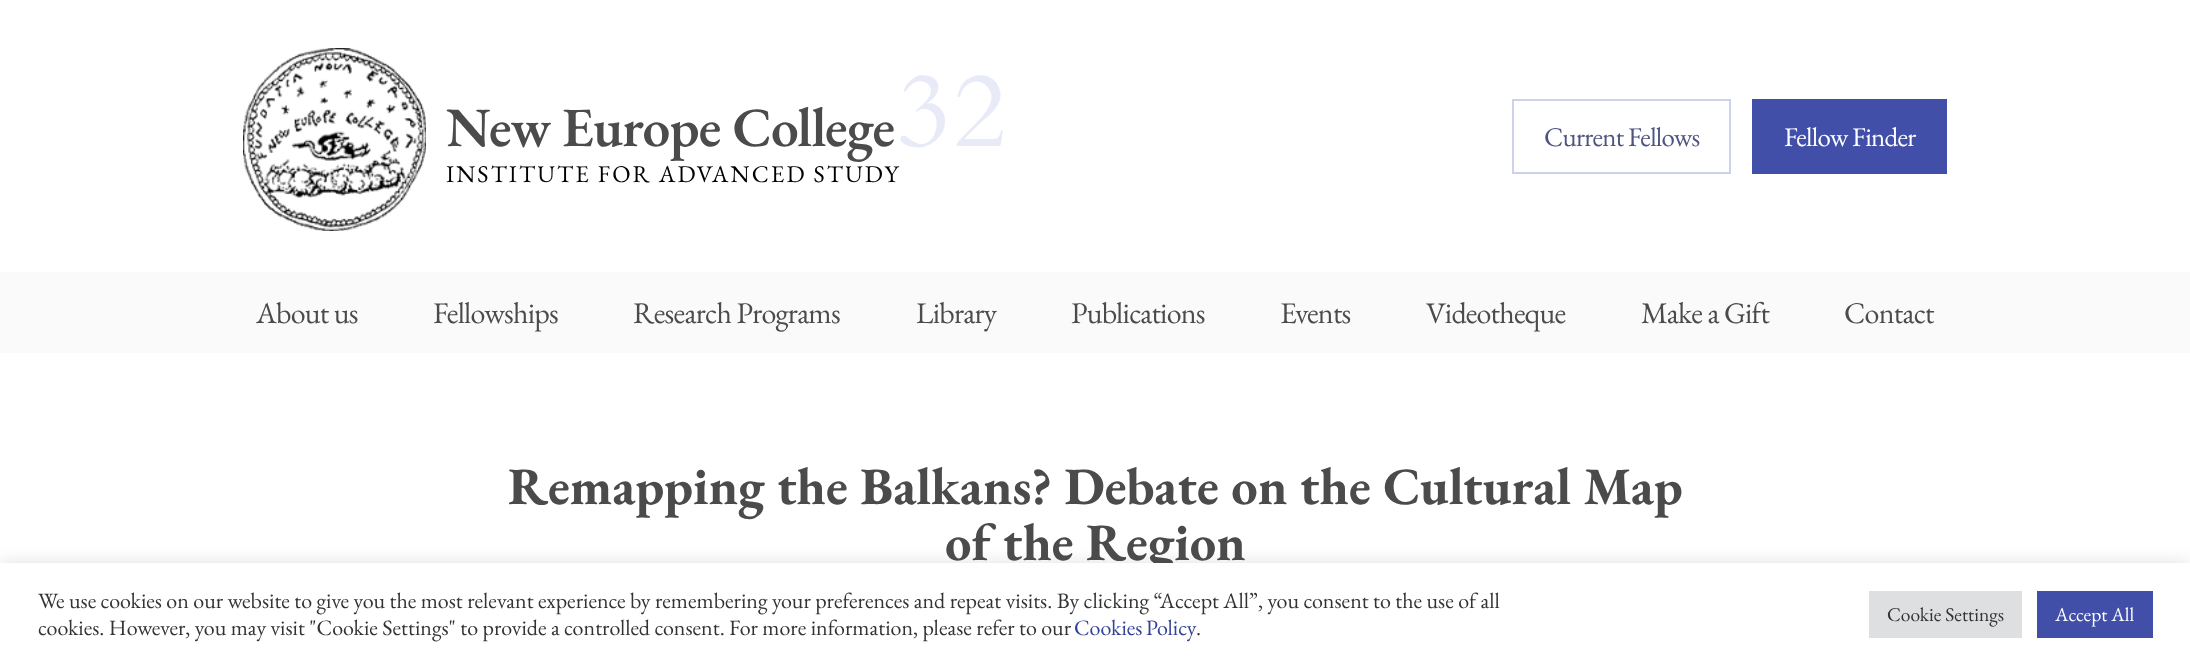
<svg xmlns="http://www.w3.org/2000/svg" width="2190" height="665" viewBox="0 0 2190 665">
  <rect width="100%" height="100%" fill="#fff"/>
  <image x="243" y="48" width="183" height="183" href="img/1.png"/>
  <path d="M0 272h2190v81H0z" fill="#fafafa"/>
  <path d="M1513 100h217v73H1513z" fill="none" stroke="#cdd1ee" stroke-width="2"/>
  <path d="M1752 99h195v75H1752z" fill="#414fa8"/>
  <path d="M0 561h2190v104H0z" fill="#acabab4d" filter="blur(7.5px)"/>
  <text x="446" y="146" font-family="EB Garamond" font-size="55.5" font-weight="600" letter-spacing="-0.75" fill="#4b4b4b">New Europe College</text>
  <text x="897" y="146" font-family="Cardo" font-size="105" letter-spacing="2" fill="#e8eaf8">32</text>
  <text x="446" y="182" font-family="EB Garamond" font-size="24" letter-spacing="2.1" fill="#000">INSTITUTE FOR ADVANCED STUDY</text>
  <text x="1544" y="146" font-family="EB Garamond" font-size="27" letter-spacing="-0.75" fill="#4d5482">Current Fellows</text>
  <text x="1784" y="146" font-family="EB Garamond" font-size="27" letter-spacing="-0.75" fill="#fff">Fellow Finder</text>
  <g font-family="EB Garamond" font-size="30" letter-spacing="-0.75" fill="#4b4b4b">
    <text x="256" y="323">About us</text>
    <text x="433" y="323">Fellowships</text>
    <text x="633" y="323">Research Programs</text>
    <text x="916" y="323">Library</text>
    <text x="1071" y="323">Publications</text>
    <text x="1280" y="323">Events</text>
    <text x="1426" y="323">Videotheque</text>
    <text x="1641" y="323">Make a Gift</text>
    <text x="1844" y="323">Contact</text>
  </g>
  <g font-family="EB Garamond" font-size="52.5" font-weight="bold" fill="#4b4b4b">
    <text x="508" y="504">Remapping the Balkans? Debate on the Cultural Map</text>
    <text x="945" y="560">of the Region</text>
  </g>
  <path d="M0 563h2190v102H0z" fill="#fff"/>
  <g font-family="EB Garamond" font-size="22" fill="#333">
    <text x="38" y="608">We use cookies on our website to give you the most relevant experience by remembering your preferences and repeat visits. By clicking “Accept All”, you consent to the use of all</text>
    <text x="38" y="635">cookies. However, you may visit "Cookie Settings" to provide a controlled consent. For more information, please refer to our</text>
  </g>
  <text x="1074" y="635" word-spacing="-1" font-family="EB Garamond" font-size="22" fill="#334196">Cookies Policy</text>
  <text x="1196" y="635" font-family="EB Garamond" font-size="22" fill="#333">.</text>
  <path d="M1869 591h153v47H1869z" fill="#dedfe0"/>
  <text x="1887" y="621" font-family="EB Garamond" font-size="19.5" fill="#333">Cookie Settings</text>
  <path d="M2037 591h116v47H2037z" fill="#414fa8"/>
  <text x="2055" y="621" font-family="EB Garamond" font-size="19.5" fill="#fff">Accept All</text>
</svg>
